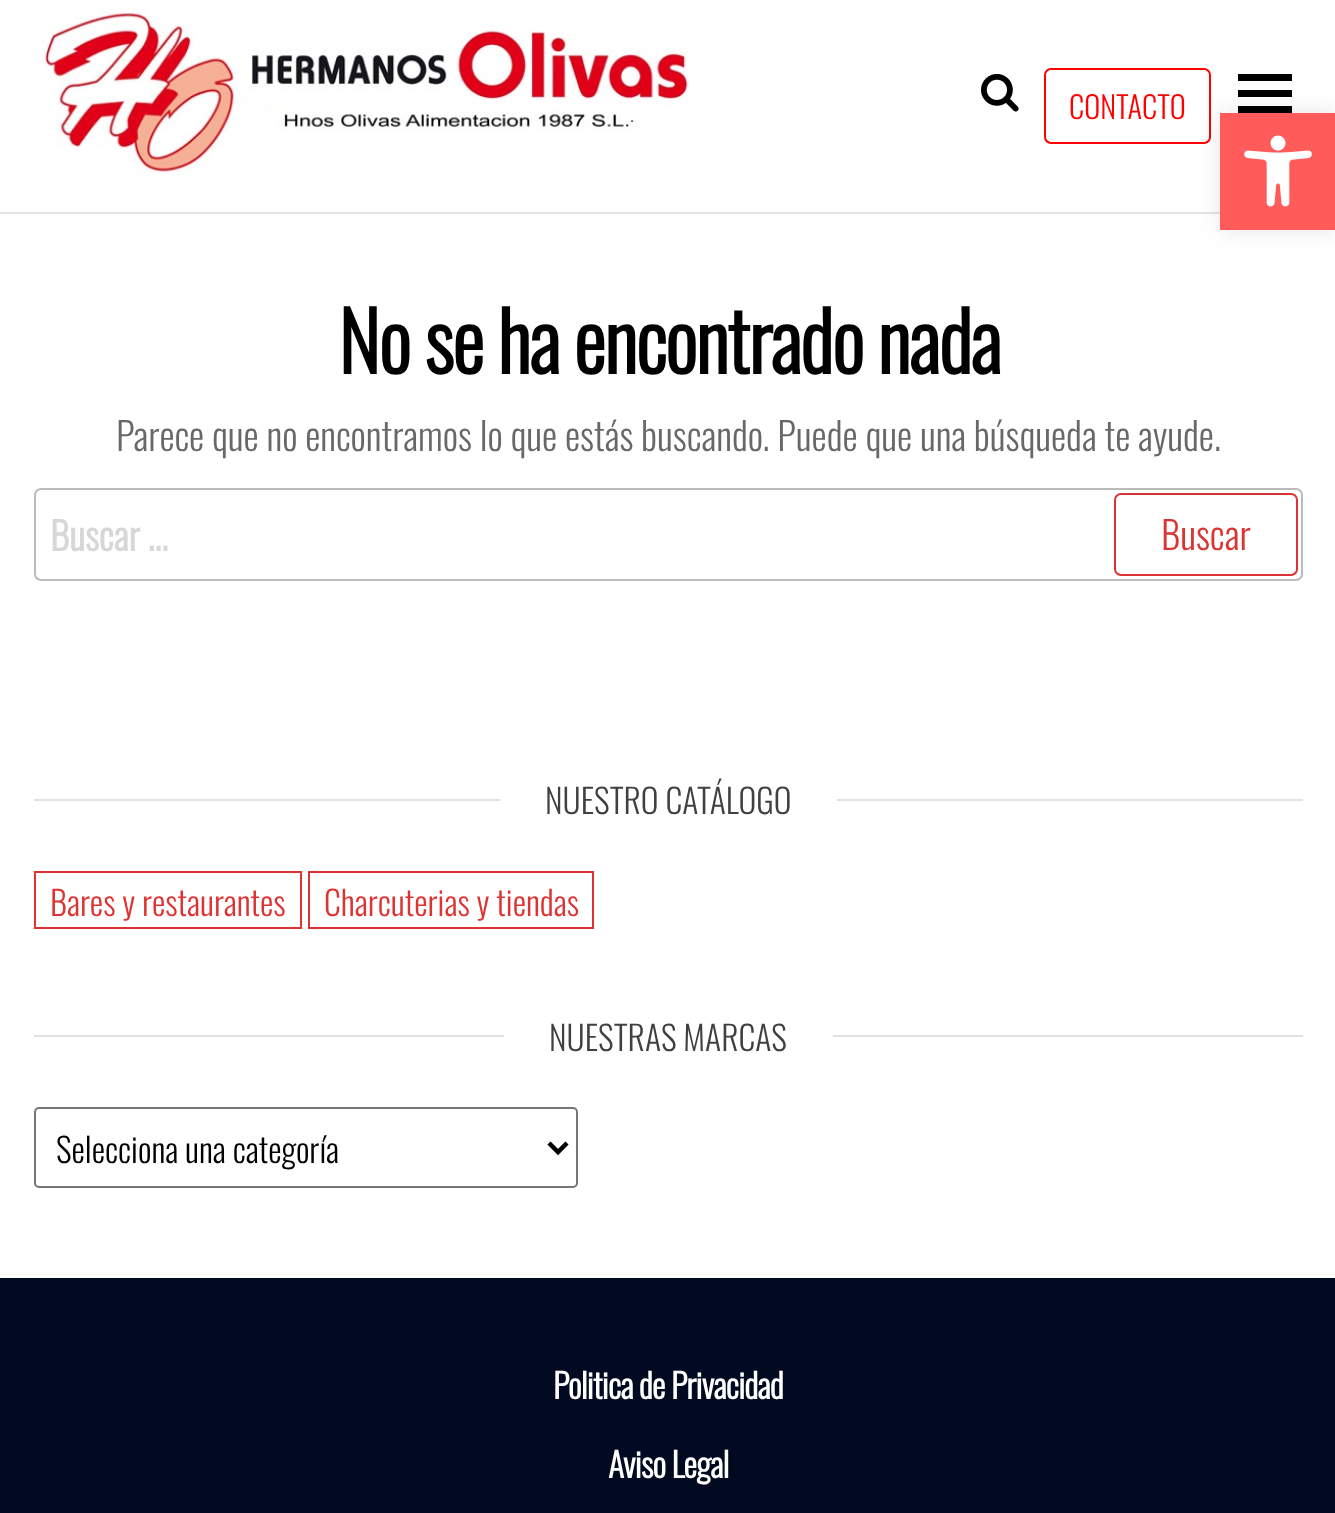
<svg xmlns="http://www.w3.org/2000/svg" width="1335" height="1513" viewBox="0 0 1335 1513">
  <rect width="100%" height="100%" fill="#fff"/>
  <path d="M0 212h1220v2H0z" fill="#e2e2e2"/>
  <image x="34" y="8" width="655" height="170" href="img/1.png"/>
  <image x="981" y="73" width="38" height="39" href="img/2.png"/>
  <rect x="1045" y="69" width="165" height="74" rx="6" fill="none" stroke="#f00" stroke-width="2"/>
  <path d="M1238 74h54v7H1238z" fill="#000"/>
  <path d="M1238 90h54v7H1238z" fill="#000"/>
  <path d="M1238 106h54v7H1238z" fill="#000"/>
  <rect x="35" y="489" width="1267" height="91" rx="6" fill="none" stroke="#bbb" stroke-width="2"/>
  <rect x="1115" y="494" width="182" height="81" rx="6" fill="none" stroke="#d33" stroke-width="2"/>
  <path d="M34 799h1269v2H34z" fill="#e2e2e2"/>
  <path d="M500 799h337v2H500z" fill="#fff"/>
  <path d="M35 872h266v56H35z" fill="none" stroke="#d33" stroke-width="2"/>
  <path d="M309 872h284v56H309z" fill="none" stroke="#d33" stroke-width="2"/>
  <path d="M34 1035h1269v2H34z" fill="#e2e2e2"/>
  <path d="M504 1035h329v2H504z" fill="#fff"/>
  <rect x="35" y="1108" width="542" height="79" rx="4" fill="none" stroke="#767676" stroke-width="2"/>
  <path d="M549 1143L558 1152L567 1143" fill="none" stroke="#000" stroke-width="4.5"/>
  <path d="M0 1278h1335v235H0z" fill="#010a21"/>
  <path d="M1220 113h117v117H1220z" fill="#0000001a" filter="blur(11px)"/>
  <path d="M1220 113h115v117H1220z" fill="#ff5b5b"/>
  <image x="1244" y="135" width="68" height="72" href="img/3.png"/>
  <text x="1069" y="119" font-family="Oswald" font-size="30.5" font-weight="300" fill="#f00">CONTACTO</text>
  <text x="338" y="374" font-family="Oswald" font-size="81" font-weight="bold" letter-spacing="-1.6" fill="#000">No se ha encontrado nada</text>
  <text x="116" y="451" font-family="Oswald" font-size="38.25" font-weight="300" fill="#686868">Parece que no encontramos lo que estás buscando. Puede que una búsqueda te ayude.</text>
  <text x="50" y="551" font-family="Oswald" font-size="38.25" font-weight="bold" fill="#d7d7d7">Buscar …</text>
  <text x="1161" y="550" font-family="Oswald" font-size="38.25" font-weight="300" fill="#d33">Buscar</text>
  <text x="545" y="814" font-family="Oswald" font-size="33.75" font-weight="300" fill="#404040">NUESTRO CATÁLOGO</text>
  <g font-family="Oswald" font-size="33.75" font-weight="300" fill="#d33">
    <text x="50" y="916">Bares y restaurantes</text>
    <text x="324" y="916">Charcuterias y tiendas</text>
  </g>
  <text x="549" y="1051" font-family="Oswald" font-size="33.75" font-weight="300" fill="#404040">NUESTRAS MARCAS</text>
  <text x="56" y="1163" font-family="Oswald" font-size="33.75" font-weight="300" fill="#000">Selecciona una categoría</text>
  <g font-family="Oswald" font-size="33.75" font-weight="bold" letter-spacing="-0.7" fill="#fff">
    <text x="553" y="1399">Politica de Privacidad</text>
    <text x="608" y="1478">Aviso Legal</text>
  </g>
</svg>
